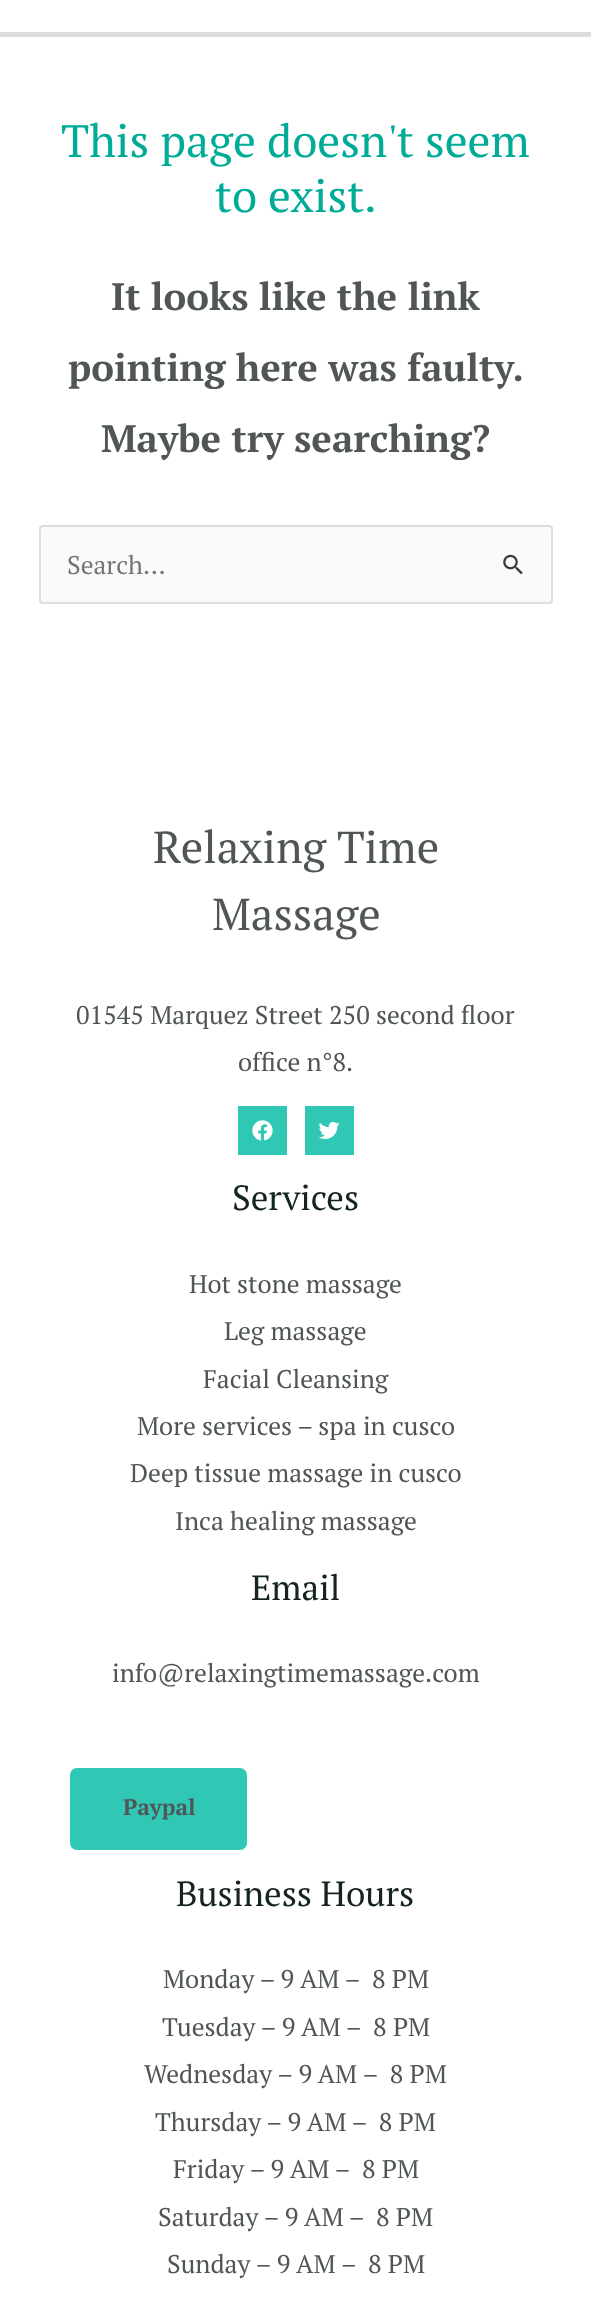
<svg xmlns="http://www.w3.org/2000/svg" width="591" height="2309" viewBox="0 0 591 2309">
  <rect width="100%" height="100%" fill="#fff"/>
  <path d="M0 32h591v5H0z" fill="#ddd"/>
  <rect x="40" y="526" width="512" height="77" rx="3" fill="#fafafa" stroke="#ddd" stroke-width="2"/>
  <image x="503" y="554" width="20" height="21" href="img/1.png"/>
  <path d="M238 1106h49v49H238z" fill="#30c7b5"/>
  <image x="252" y="1120" width="21" height="21" href="img/2.png"/>
  <path d="M305 1106h49v49H305z" fill="#30c7b5"/>
  <image x="319" y="1122" width="21" height="17" href="img/3.png"/>
  <rect x="70" y="1768" width="177" height="82" rx="7" fill="#30c7b5"/>
  <g font-family="PT Serif" font-size="45.5" fill="#00ac97">
    <text x="61" y="157">This page doesn't seem</text>
    <text x="215" y="212">to exist.</text>
  </g>
  <g font-family="PT Serif" font-size="38.25" font-weight="bold" fill="#4f5655">
    <text x="111" y="310">It looks like the link</text>
    <text x="68" y="381">pointing here was faulty.</text>
    <text x="101" y="452">Maybe try searching?</text>
  </g>
  <text x="67" y="574" font-family="PT Serif" font-size="25.5" fill="#757575">Search...</text>
  <g font-family="PT Serif" font-size="44.75" fill="#4f5655">
    <text x="153" y="863">Relaxing Time</text>
    <text x="212" y="930">Massage</text>
  </g>
  <g font-family="PT Serif" font-size="25.5" fill="#4f5655">
    <text x="76" y="1024">01545 Marquez Street 250 second floor</text>
    <text x="238" y="1071">office n°8.</text>
  </g>
  <text x="232" y="1210" font-family="PT Serif" font-size="35" fill="#14261c">Services</text>
  <g font-family="PT Serif" font-size="25.5" fill="#4f5655">
    <text x="189" y="1293">Hot stone massage</text>
    <text x="224" y="1340">Leg massage</text>
    <text x="203" y="1388">Facial Cleansing</text>
    <text x="137" y="1435">More services – spa in cusco</text>
    <text x="130" y="1482">Deep tissue massage in cusco</text>
    <text x="175" y="1530">Inca healing massage</text>
  </g>
  <text x="251" y="1600" font-family="PT Serif" font-size="35" fill="#14261c">Email</text>
  <text x="112" y="1682" font-family="PT Serif" font-size="25.5" fill="#4f5655">info@relaxingtimemassage.com</text>
  <text x="123" y="1815" font-family="PT Serif" font-size="22.5" font-weight="bold" fill="#4f5655">Paypal</text>
  <text x="176" y="1906" font-family="PT Serif" font-size="35" fill="#14261c">Business Hours</text>
  <g font-family="PT Serif" font-size="25.5" fill="#4f5655">
    <text x="163" y="1988" xml:space="preserve">Monday – 9 AM –  8 PM</text>
    <text x="162" y="2036" xml:space="preserve">Tuesday – 9 AM –  8 PM</text>
    <text x="144" y="2083" xml:space="preserve">Wednesday – 9 AM –  8 PM</text>
    <text x="155" y="2131" xml:space="preserve">Thursday – 9 AM –  8 PM</text>
    <text x="173" y="2178" xml:space="preserve">Friday – 9 AM –  8 PM</text>
    <text x="158" y="2226" xml:space="preserve">Saturday – 9 AM –  8 PM</text>
    <text x="167" y="2273" xml:space="preserve">Sunday – 9 AM –  8 PM</text>
  </g>
</svg>
